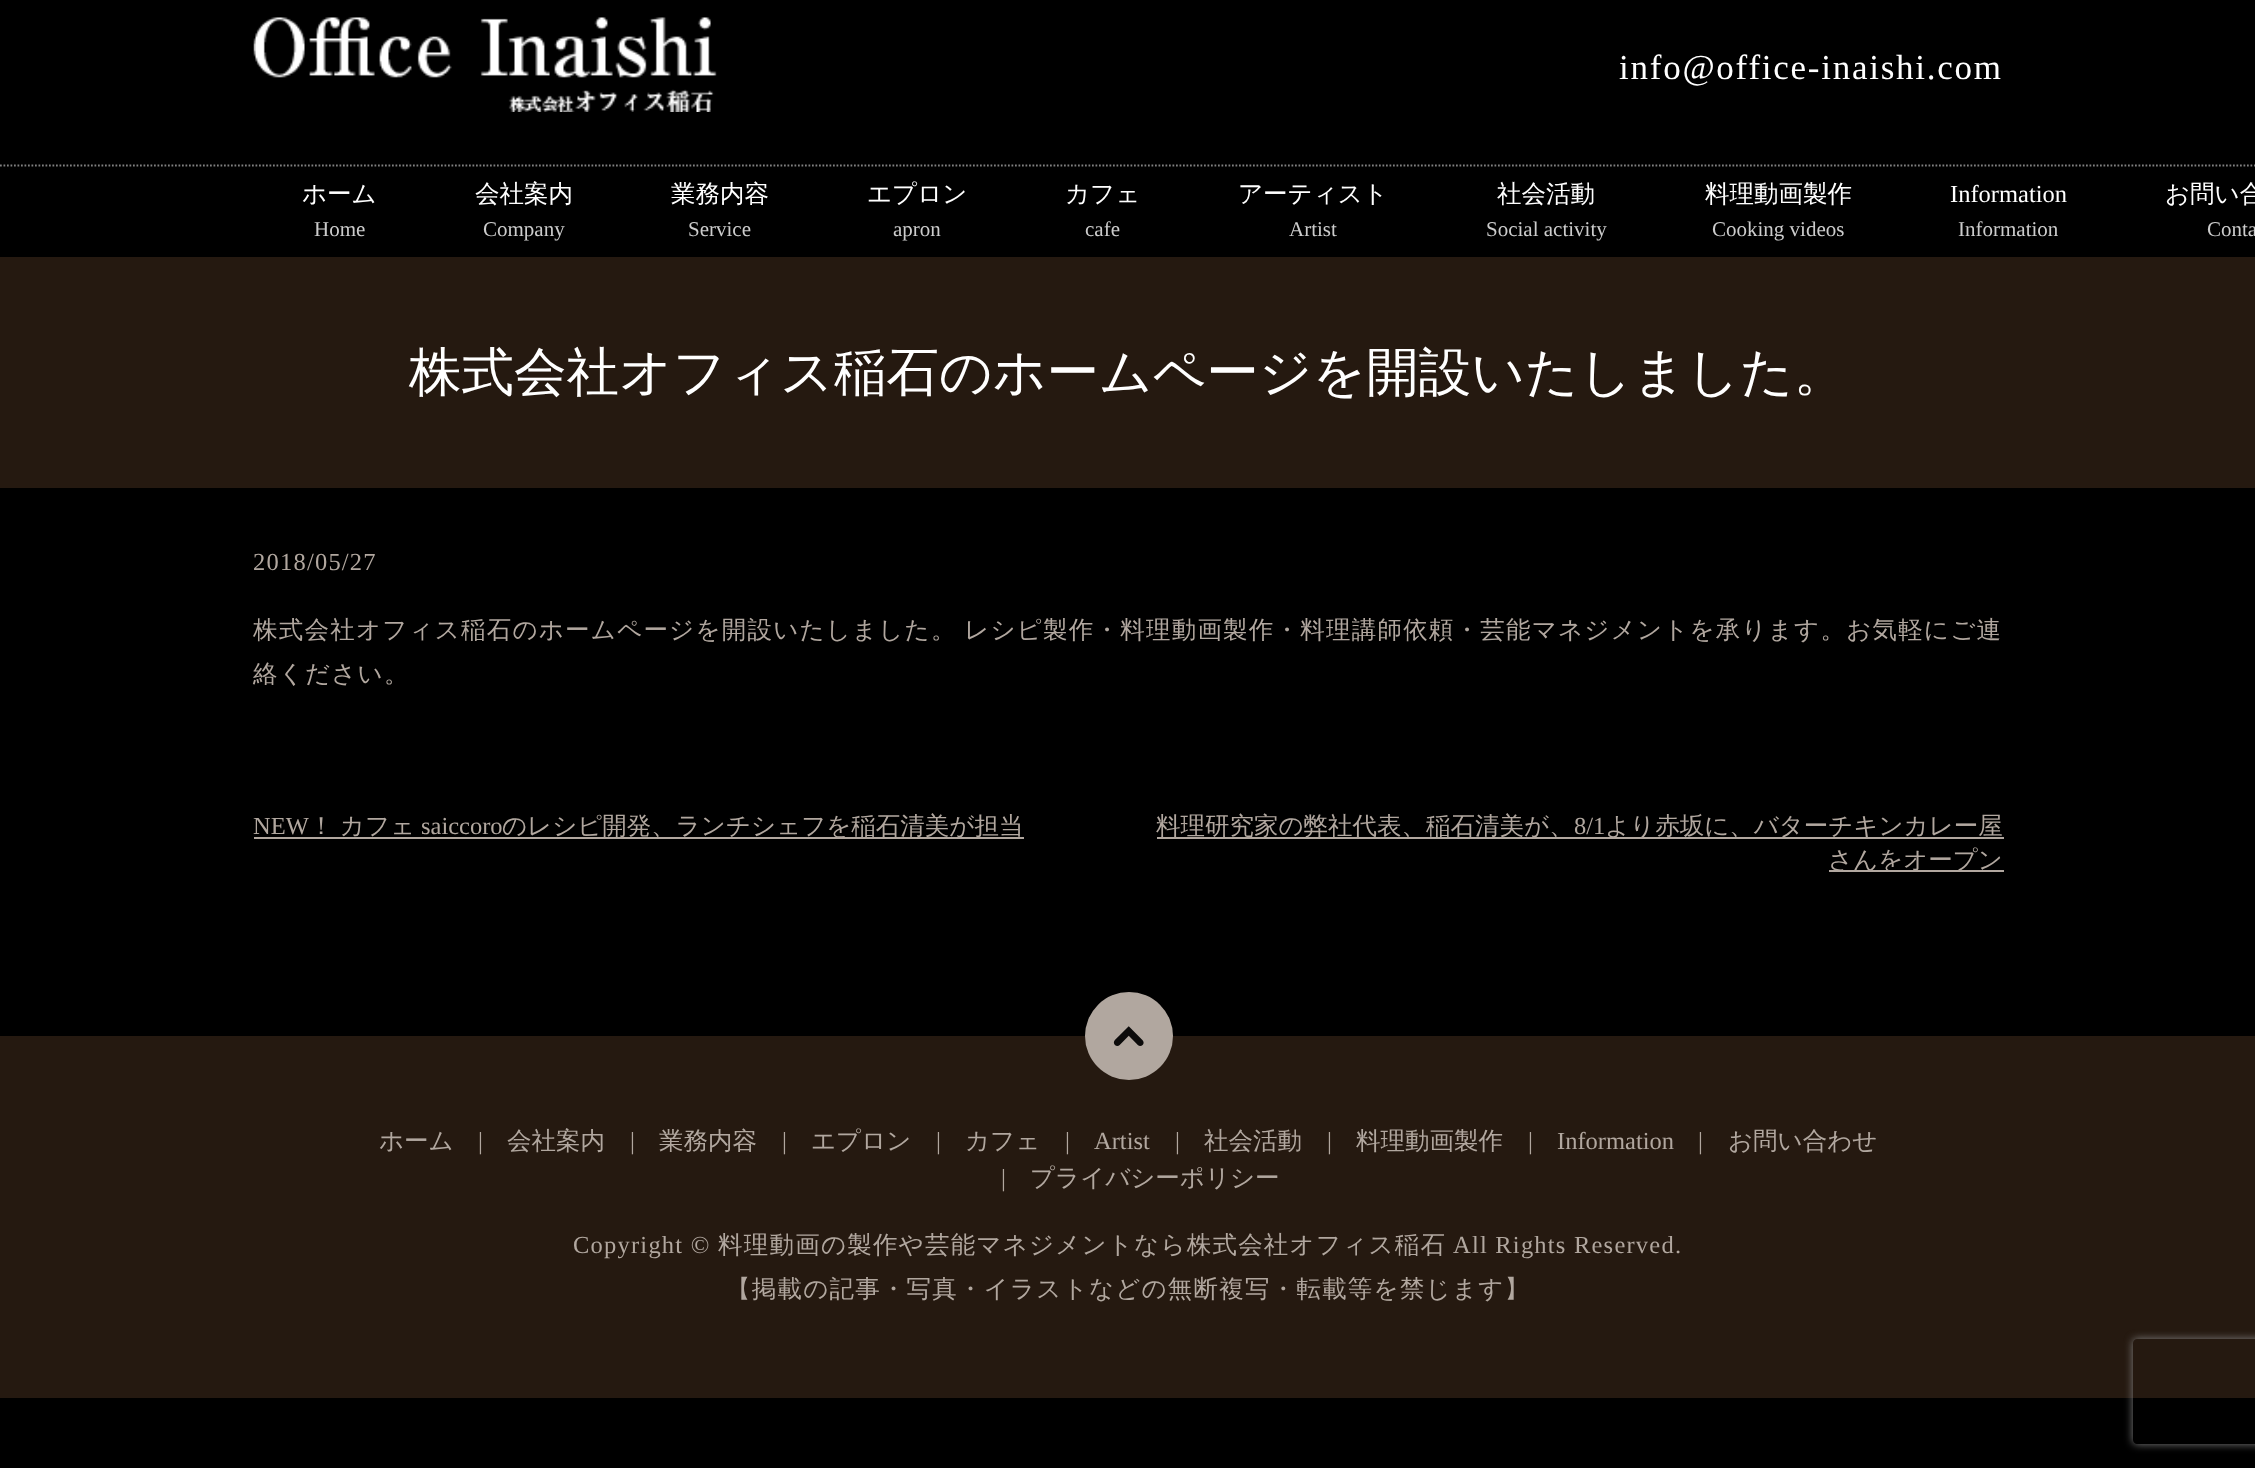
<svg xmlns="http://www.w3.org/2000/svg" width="2255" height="1468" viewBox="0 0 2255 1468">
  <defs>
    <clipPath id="clip1"><path d="M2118 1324H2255V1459H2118ZM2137 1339H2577C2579 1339 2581 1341 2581 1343V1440C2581 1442 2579 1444 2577 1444H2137C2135 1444 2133 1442 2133 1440V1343C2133 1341 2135 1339 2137 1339Z" clip-rule="evenodd"/></clipPath>
  </defs>
  <rect width="100%" height="100%" fill="#000"/>
  <image x="253" y="17" width="464" height="95" href="img/1.png"/>
  <path d="M0 165.5H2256" fill="none" stroke="#808080" stroke-width="1.8" stroke-dasharray="1.75 1.75"/>
  <path d="M0 257h2255v231H0z" fill="#251910"/>
  <path d="M254 837h770v2H254z" fill="#b1a79f"/>
  <path d="M1157 837h847v2H1157z" fill="#b1a79f"/>
  <path d="M1829 870h175v2H1829z" fill="#b1a79f"/>
  <path d="M0 1036h2255v362H0z" fill="#251910"/>
  <circle cx="1129" cy="1036" r="44" fill="#b1a79f"/>
  <image x="1113" y="1026" width="31" height="20" href="img/2.png"/>
  <g clip-path="url(#clip1)">
    <rect x="2133" y="1339" width="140" height="105" rx="4" fill="#808080" filter="blur(4.5px)"/>
  </g>
  <text x="1619" y="79" font-family="Liberation Serif" font-size="35" letter-spacing="1.75" fill="#fff">info@office-inaishi.com</text>
  <text x="302" y="202" font-family="WenQuanYi Zen Hei" font-size="24.5" font-weight="500" fill="#fff">ホーム</text>
  <text x="314" y="236" font-family="Liberation Serif" font-size="21" fill="#ccc">Home</text>
  <text x="475" y="202" font-family="WenQuanYi Zen Hei" font-size="24.5" font-weight="500" fill="#fff">会社案内</text>
  <text x="483" y="236" font-family="Liberation Serif" font-size="21" fill="#ccc">Company</text>
  <text x="671" y="202" font-family="WenQuanYi Zen Hei" font-size="24.5" font-weight="500" fill="#fff">業務内容</text>
  <text x="688" y="236" font-family="Liberation Serif" font-size="21" fill="#ccc">Service</text>
  <text x="867" y="202" font-family="WenQuanYi Zen Hei" font-size="24.5" font-weight="500" fill="#fff">エプロン</text>
  <text x="893" y="236" font-family="Liberation Serif" font-size="21" fill="#ccc">apron</text>
  <text x="1065" y="202" font-family="WenQuanYi Zen Hei" font-size="24.5" font-weight="500" fill="#fff">カフェ</text>
  <text x="1085" y="236" font-family="Liberation Serif" font-size="21" fill="#ccc">cafe</text>
  <text x="1238" y="202" font-family="WenQuanYi Zen Hei" font-size="24.5" font-weight="500" fill="#fff">アーティスト</text>
  <text x="1289" y="236" font-family="Liberation Serif" font-size="21" fill="#ccc">Artist</text>
  <text x="1497" y="202" font-family="WenQuanYi Zen Hei" font-size="24.5" font-weight="500" fill="#fff">社会活動</text>
  <text x="1486" y="236" font-family="Liberation Serif" font-size="21" fill="#ccc">Social activity</text>
  <text x="1705" y="202" font-family="WenQuanYi Zen Hei" font-size="24.5" font-weight="500" fill="#fff">料理動画製作</text>
  <text x="1712" y="236" font-family="Liberation Serif" font-size="21" fill="#ccc">Cooking videos</text>
  <text x="1950" y="202" font-family="Liberation Serif" font-size="24.5" fill="#fff">Information</text>
  <text x="1958" y="236" font-family="Liberation Serif" font-size="21" fill="#ccc">Information</text>
  <text x="2165" y="202" font-family="WenQuanYi Zen Hei" font-size="24.5" font-weight="500" fill="#fff">お問い合</text>
  <text x="2207" y="236" font-family="Liberation Serif" font-size="21" fill="#ccc">Conta</text>
  <text x="409" y="390" font-family="WenQuanYi Zen Hei" font-size="52.5" font-weight="500" fill="#fff">株式会社オフィス稲石のホームページを開設いたしました。</text>
  <text x="253" y="570" font-family="Liberation Serif" font-size="24.5" letter-spacing="1.22" fill="#b1a79f">2018/05/27</text>
  <g font-family="WenQuanYi Zen Hei" font-size="24.5" font-weight="500" letter-spacing="1.22" fill="#b1a79f">
    <text x="253" y="638" word-spacing="-1">株式会社オフィス稲石のホームページを開設いたしました。 レシピ製作・料理動画製作・料理講師依頼・芸能マネジメントを承ります。お気軽にご連</text>
    <text x="253" y="682">絡ください。</text>
  </g>
  <text x="253" y="834" font-family="Liberation Serif" font-size="24.5" fill="#b1a79f">NEW</text>
  <text x="309" y="834" word-spacing="-1" font-family="WenQuanYi Zen Hei" font-size="24.5" font-weight="500" fill="#b1a79f">！ カフェ</text>
  <text x="421" y="834" font-family="Liberation Serif" font-size="24.5" fill="#b1a79f">saiccoro</text>
  <g font-family="WenQuanYi Zen Hei" font-size="24.5" font-weight="500" fill="#b1a79f">
    <text x="502" y="834">のレシピ開発、ランチシェフを稲石清美が担当</text>
    <text x="1156" y="834">料理研究家の弊社代表、稲石清美が、</text>
  </g>
  <text x="1574" y="834" font-family="Liberation Serif" font-size="24.5" fill="#b1a79f">8/1</text>
  <g font-family="WenQuanYi Zen Hei" font-size="24.5" font-weight="500" fill="#b1a79f">
    <text x="1605" y="834">より赤坂に、バターチキンカレー屋</text>
    <text x="1828" y="868">さんをオープン</text>
    <text x="379" y="1149">ホーム</text>
  </g>
  <text x="478" y="1149" font-family="Liberation Serif" font-size="24.5" fill="#b1a79f">|</text>
  <text x="507" y="1149" font-family="WenQuanYi Zen Hei" font-size="24.5" font-weight="500" fill="#b1a79f">会社案内</text>
  <text x="630" y="1149" font-family="Liberation Serif" font-size="24.5" fill="#b1a79f">|</text>
  <text x="659" y="1149" font-family="WenQuanYi Zen Hei" font-size="24.5" font-weight="500" fill="#b1a79f">業務内容</text>
  <text x="782" y="1149" font-family="Liberation Serif" font-size="24.5" fill="#b1a79f">|</text>
  <text x="811" y="1149" font-family="WenQuanYi Zen Hei" font-size="24.5" font-weight="500" fill="#b1a79f">エプロン</text>
  <text x="936" y="1149" font-family="Liberation Serif" font-size="24.5" fill="#b1a79f">|</text>
  <text x="965" y="1149" font-family="WenQuanYi Zen Hei" font-size="24.5" font-weight="500" fill="#b1a79f">カフェ</text>
  <g font-family="Liberation Serif" font-size="24.5" fill="#b1a79f">
    <text x="1065" y="1149">|</text>
    <text x="1094" y="1149">Artist</text>
    <text x="1175" y="1149">|</text>
  </g>
  <text x="1204" y="1149" font-family="WenQuanYi Zen Hei" font-size="24.5" font-weight="500" fill="#b1a79f">社会活動</text>
  <text x="1327" y="1149" font-family="Liberation Serif" font-size="24.5" fill="#b1a79f">|</text>
  <text x="1356" y="1149" font-family="WenQuanYi Zen Hei" font-size="24.5" font-weight="500" fill="#b1a79f">料理動画製作</text>
  <g font-family="Liberation Serif" font-size="24.5" fill="#b1a79f">
    <text x="1528" y="1149">|</text>
    <text x="1557" y="1149">Information</text>
    <text x="1698" y="1149">|</text>
  </g>
  <text x="1728" y="1149" font-family="WenQuanYi Zen Hei" font-size="24.5" font-weight="500" fill="#b1a79f">お問い合わせ</text>
  <text x="1001" y="1186" font-family="Liberation Serif" font-size="24.5" fill="#b1a79f">|</text>
  <text x="1030" y="1186" font-family="WenQuanYi Zen Hei" font-size="24.5" font-weight="500" fill="#b1a79f">プライバシーポリシー</text>
  <text x="573" y="1253" font-family="Liberation Serif" font-size="24.5" letter-spacing="1.22" fill="#b1a79f">Copyright ©</text>
  <text x="718" y="1253" font-family="WenQuanYi Zen Hei" font-size="24.5" font-weight="500" letter-spacing="1.22" fill="#b1a79f">料理動画の製作や芸能マネジメントなら株式会社オフィス稲石</text>
  <text x="1453" y="1253" font-family="Liberation Serif" font-size="24.5" letter-spacing="1.22" fill="#b1a79f">All Rights Reserved.</text>
  <text x="726" y="1297" font-family="WenQuanYi Zen Hei" font-size="24.5" font-weight="500" letter-spacing="1.22" fill="#b1a79f">【掲載の記事・写真・イラストなどの無断複写・転載等を禁じます】</text>
</svg>
